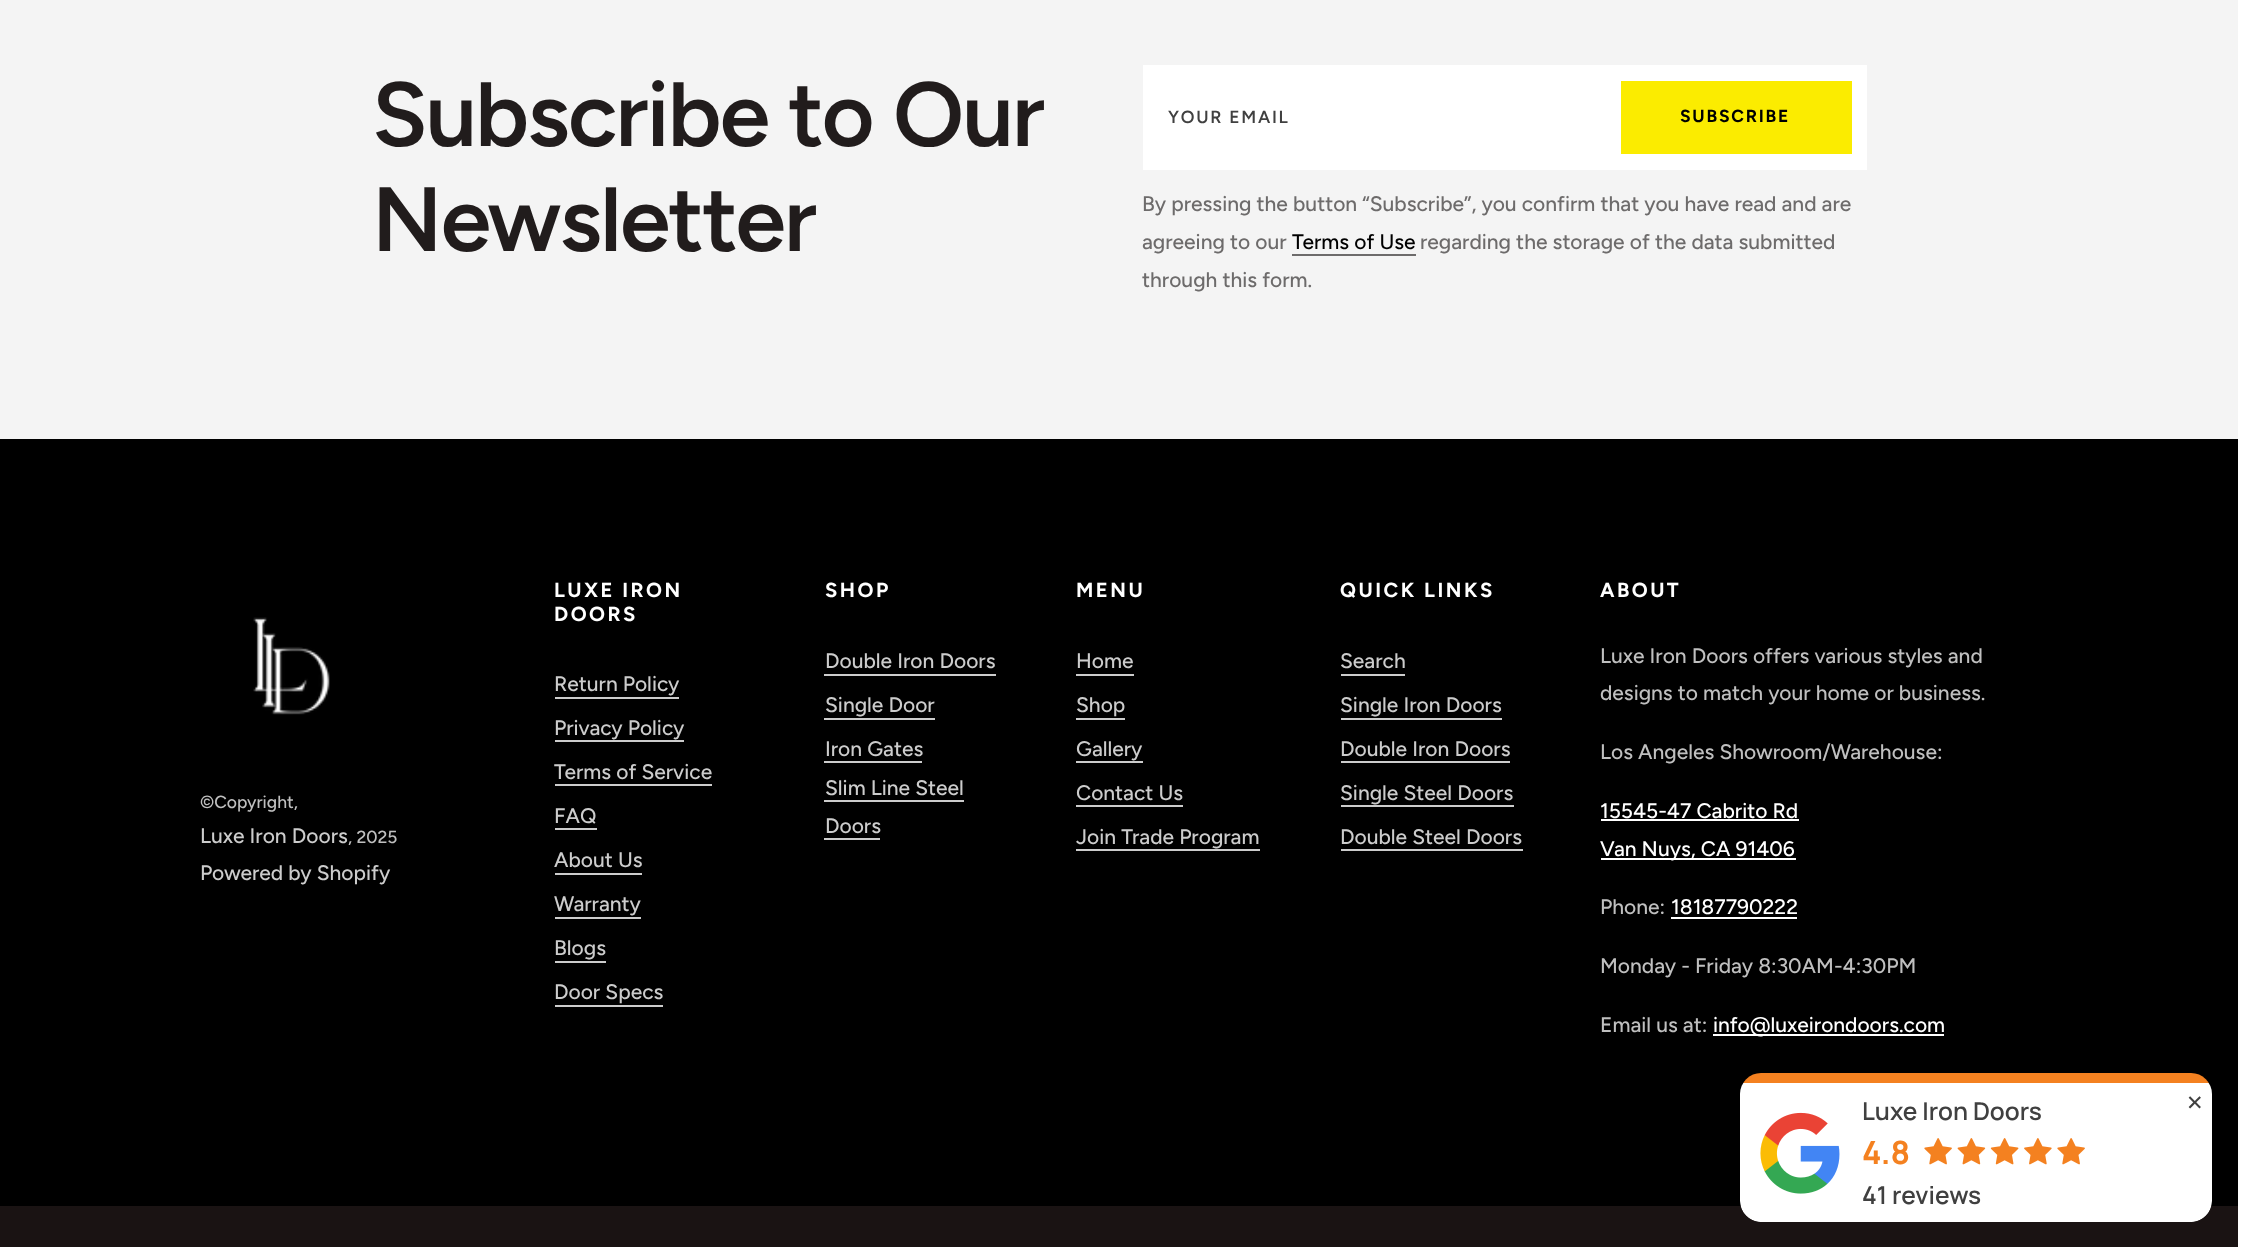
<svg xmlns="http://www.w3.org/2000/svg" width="2264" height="1247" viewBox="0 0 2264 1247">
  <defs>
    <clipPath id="clip1"><rect x="1740" y="1073" width="472" height="149" rx="21"/></clipPath>
  </defs>
  <rect width="100%" height="100%" fill="#fff"/>
  <path d="M0 0h2238v439H0z" fill="#f4f4f4"/>
  <path d="M1143 65h724v105H1143z" fill="#fff"/>
  <path d="M1622 82h229v71H1622z" fill="none" stroke="#fbec00" stroke-width="2"/>
  <path d="M1623 83h227v69H1623z" fill="#fbec00"/>
  <path d="M1292 254h124v2H1292z" fill="#6d6b6b"/>
  <path d="M0 439h2238v767H0z" fill="#000"/>
  <image x="253" y="617" width="77" height="98" href="img/1.png"/>
  <path d="M555 697h124v2H555z" fill="#ccc"/>
  <path d="M555 740h129v2H555z" fill="#ccc"/>
  <path d="M555 784h157v2H555z" fill="#ccc"/>
  <path d="M555 828h42v2H555z" fill="#ccc"/>
  <path d="M555 873h87v2H555z" fill="#ccc"/>
  <path d="M555 917h86v2H555z" fill="#ccc"/>
  <path d="M555 961h51v2H555z" fill="#ccc"/>
  <path d="M555 1005h108v2H555z" fill="#ccc"/>
  <path d="M824 674h172v2H824z" fill="#ccc"/>
  <path d="M824 718h111v2H824z" fill="#ccc"/>
  <path d="M824 761h98v2H824z" fill="#ccc"/>
  <path d="M824 800h140v2H824z" fill="#ccc"/>
  <path d="M824 838h56v2H824z" fill="#ccc"/>
  <path d="M1076 674h58v2H1076z" fill="#ccc"/>
  <path d="M1076 718h49v2H1076z" fill="#ccc"/>
  <path d="M1076 761h67v2H1076z" fill="#ccc"/>
  <path d="M1076 805h107v2H1076z" fill="#ccc"/>
  <path d="M1076 849h184v2H1076z" fill="#ccc"/>
  <path d="M1341 674h64v2H1341z" fill="#ccc"/>
  <path d="M1341 718h161v2H1341z" fill="#ccc"/>
  <path d="M1341 761h169v2H1341z" fill="#ccc"/>
  <path d="M1341 805h173v2H1341z" fill="#ccc"/>
  <path d="M1341 849h182v2H1341z" fill="#ccc"/>
  <path d="M1601 819h198v2H1601z" fill="#fff"/>
  <path d="M1601 858h195v2H1601z" fill="#fff"/>
  <path d="M1671 917h126v2H1671z" fill="#fff"/>
  <path d="M1713 1034h231v2H1713z" fill="#fff"/>
  <path d="M0 1206h2238v41H0z" fill="#1a1313"/>
  <g clip-path="url(#clip1)">
    <path d="M1743 1073h466v10H1743z" fill="#f48120"/>
    <path d="M1740 1083H2212V1201C2212 1212.5 2202.5 1222 2191 1222H1761C1749.5 1222 1740 1212.5 1740 1201Z" fill="#fff"/>
  </g>
  <image x="1760" y="1112" width="80" height="82" href="img/2.png"/>
  <image x="1924" y="1138" width="28" height="27" href="img/3.png"/>
  <image x="1957" y="1138" width="29" height="27" href="img/4.png"/>
  <image x="1990" y="1138" width="29" height="27" href="img/5.png"/>
  <image x="2024" y="1138" width="28" height="27" href="img/6.png"/>
  <image x="2057" y="1138" width="28" height="27" href="img/3.png"/>
  <g font-family="Figtree" font-size="91" font-weight="600" letter-spacing="-1.8" fill="#211c1c">
    <text x="372" y="146">Subscribe to Our</text>
    <text x="372" y="251">Newsletter</text>
  </g>
  <text x="1168" y="123" font-family="Figtree" font-size="17.5" font-weight="600" letter-spacing="1.75" fill="#404040">YOUR EMAIL</text>
  <text x="1680" y="122" font-family="Figtree" font-size="17.5" font-weight="bold" letter-spacing="1.75" fill="#000">SUBSCRIBE</text>
  <g font-family="Figtree" font-size="21" font-weight="500" fill="#6d6b6b">
    <text x="1142" y="211">By pressing the button “Subscribe”, you confirm that you have read and are</text>
    <text x="1142" y="249">agreeing to our</text>
  </g>
  <text x="1292" y="249" font-family="Figtree" font-size="21" font-weight="500" fill="#000">Terms of Use</text>
  <g font-family="Figtree" font-size="21" font-weight="500" fill="#6d6b6b">
    <text x="1420" y="249">regarding the storage of the data submitted</text>
    <text x="1142" y="287">through this form.</text>
  </g>
  <text x="200" y="808" font-family="Figtree" font-size="17.5" font-weight="500" fill="#bfbfbf">©Copyright,</text>
  <text x="200" y="843" font-family="Figtree" font-size="21" font-weight="500" fill="#ccc">Luxe Iron Doors</text>
  <text x="348" y="843" font-family="Figtree" font-size="17.5" font-weight="500" fill="#bfbfbf">, 2025</text>
  <text x="200" y="880" font-family="Figtree" font-size="21" font-weight="500" fill="#ccc">Powered by Shopify</text>
  <g font-family="Figtree" font-size="20.25" font-weight="bold" letter-spacing="2.5" fill="#fff">
    <text x="554" y="597">LUXE IRON</text>
    <text x="554" y="621">DOORS</text>
  </g>
  <g font-family="Figtree" font-size="21" font-weight="500" fill="#ccc">
    <text x="554" y="691">Return Policy</text>
    <text x="554" y="735">Privacy Policy</text>
    <text x="554" y="779">Terms of Service</text>
    <text x="554" y="823">FAQ</text>
    <text x="554" y="867">About Us</text>
    <text x="554" y="911">Warranty</text>
    <text x="554" y="955">Blogs</text>
    <text x="554" y="999">Door Specs</text>
  </g>
  <text x="825" y="597" font-family="Figtree" font-size="20.25" font-weight="bold" letter-spacing="2.5" fill="#fff">SHOP</text>
  <g font-family="Figtree" font-size="21" font-weight="500" fill="#ccc">
    <text x="825" y="668">Double Iron Doors</text>
    <text x="825" y="712">Single Door</text>
    <text x="825" y="756">Iron Gates</text>
    <text x="825" y="795">Slim Line Steel</text>
    <text x="825" y="833">Doors</text>
  </g>
  <text x="1076" y="597" font-family="Figtree" font-size="20.25" font-weight="bold" letter-spacing="2.5" fill="#fff">MENU</text>
  <g font-family="Figtree" font-size="21" font-weight="500" fill="#ccc">
    <text x="1076" y="668">Home</text>
    <text x="1076" y="712">Shop</text>
    <text x="1076" y="756">Gallery</text>
    <text x="1076" y="800">Contact Us</text>
    <text x="1076" y="844">Join Trade Program</text>
  </g>
  <text x="1340" y="597" font-family="Figtree" font-size="20.25" font-weight="bold" letter-spacing="2.5" fill="#fff">QUICK LINKS</text>
  <g font-family="Figtree" font-size="21" font-weight="500" fill="#ccc">
    <text x="1340" y="668">Search</text>
    <text x="1340" y="712">Single Iron Doors</text>
    <text x="1340" y="756">Double Iron Doors</text>
    <text x="1340" y="800">Single Steel Doors</text>
    <text x="1340" y="844">Double Steel Doors</text>
  </g>
  <text x="1600" y="597" font-family="Figtree" font-size="20.25" font-weight="bold" letter-spacing="2.5" fill="#fff">ABOUT</text>
  <g font-family="Figtree" font-size="21" font-weight="500" fill="#bfbfbf">
    <text x="1600" y="663">Luxe Iron Doors offers various styles and</text>
    <text x="1600" y="700">designs to match your home or business.</text>
    <text x="1600" y="759">Los Angeles Showroom/Warehouse:</text>
  </g>
  <g font-family="Figtree" font-size="21" font-weight="500" fill="#fff">
    <text x="1600" y="818">15545-47 Cabrito Rd</text>
    <text x="1600" y="856">Van Nuys, CA 91406</text>
  </g>
  <text x="1600" y="914" font-family="Figtree" font-size="21" font-weight="500" fill="#bfbfbf">Phone:</text>
  <text x="1671" y="914" font-family="Figtree" font-size="21" font-weight="500" fill="#fff">18187790222</text>
  <g font-family="Figtree" font-size="21" font-weight="500" fill="#bfbfbf">
    <text x="1600" y="973">Monday - Friday 8:30AM-4:30PM</text>
    <text x="1600" y="1032">Email us at:</text>
  </g>
  <text x="1713" y="1032" font-family="Figtree" font-size="21" font-weight="500" fill="#fff">info@luxeirondoors.com</text>
  <text x="1862" y="1120" font-family="Manrope" font-size="24.5" font-weight="600" fill="#404040">Luxe Iron Doors</text>
  <text x="1862" y="1164" font-family="Manrope" font-size="32" font-weight="bold" fill="#f48120">4.8</text>
  <text x="1862" y="1204" font-family="Manrope" font-size="24.5" font-weight="600" fill="#404040">41 reviews</text>
  <text x="2186" y="1110" font-family="DejaVu Sans" font-size="21" fill="#404040">✕</text>
</svg>
